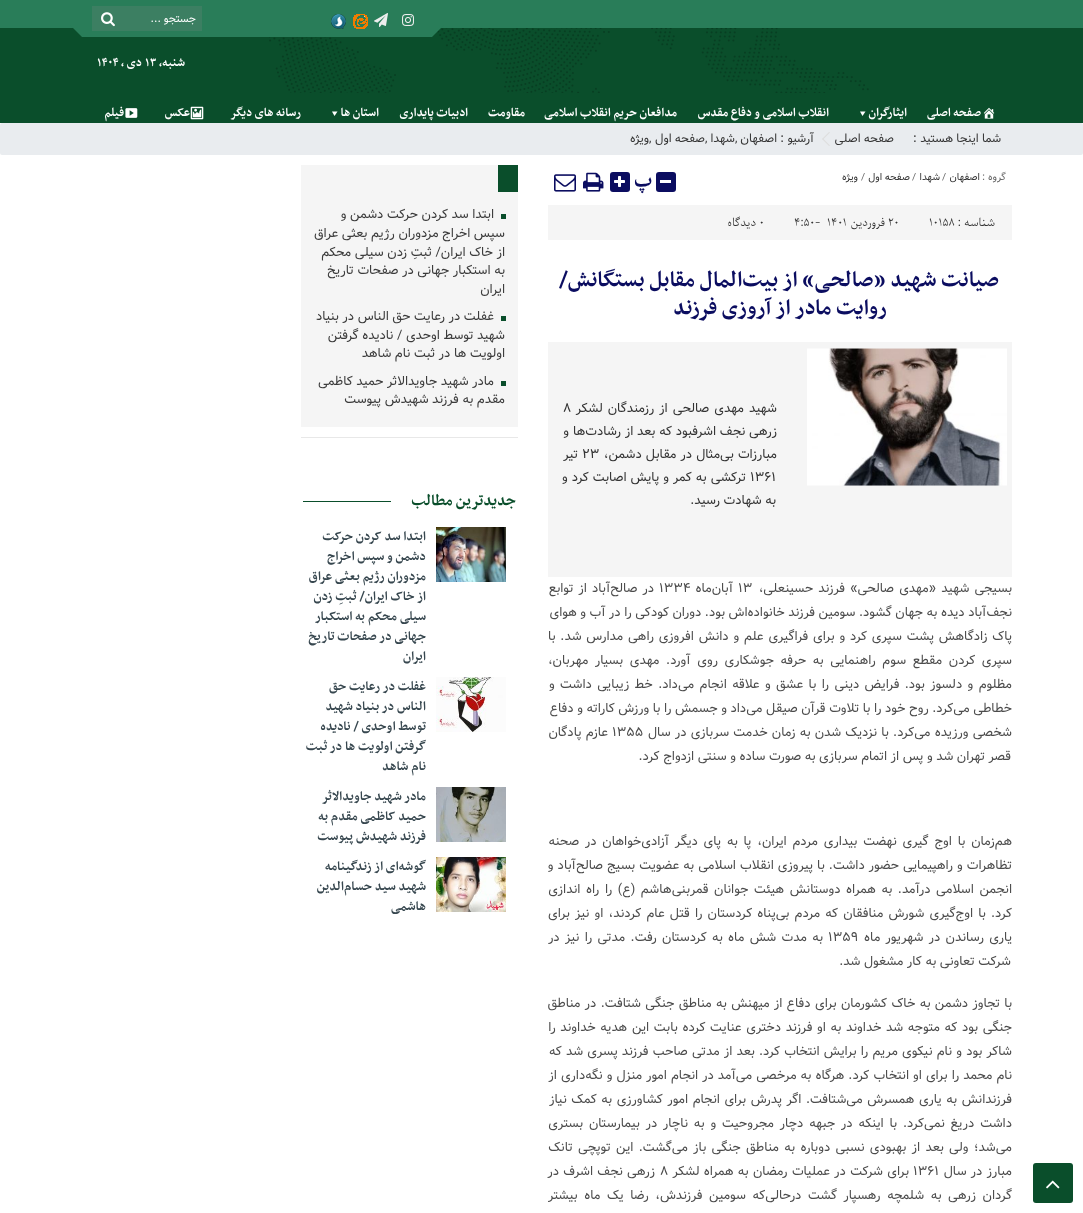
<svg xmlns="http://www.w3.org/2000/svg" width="1083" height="1213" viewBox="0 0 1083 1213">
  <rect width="100%" height="100%" fill="#fff"/>
  <path d="M0 0h1083v28H0z" fill="#297d59"/>
  <path d="M0 28h1083v95H0z" fill="#0a4e2b"/>
  <image x="269" y="28" width="600" height="65" href="img/6.png"/>
  <path d="M82 28h350v9H82z" fill="#297d59"/>
  <image x="402" y="14" width="12" height="12" href="img/1.png"/>
  <image x="374" y="13" width="14" height="14" href="img/2.png"/>
  <image x="353" y="14" width="15" height="15" href="img/3.png"/>
  <image x="331" y="14" width="15" height="15" href="img/4.png"/>
  <path d="M92 6h110v25H92z" fill="#3c7f62"/>
  <image x="101" y="12" width="14" height="15" href="img/5.png"/>
  <path d="M432 25H444L432 37Z" fill="#297d59"/>
  <path d="M70 25H82V37Z" fill="#297d59"/>
  <image x="983" y="107" width="12" height="12" href="img/7.png"/>
  <path d="M865.5 111.5L862.5 116L860 111.5Z" fill="#fff"/>
  <path d="M337.5 111.5L334.5 116L332 111.5Z" fill="#fff"/>
  <image x="190" y="106" width="14" height="14" href="img/8.png"/>
  <image x="125" y="108" width="13" height="10" href="img/9.png"/>
  <rect y="123" width="1083" height="32" rx="2" fill="#e9ecef"/>
  <path d="M823 138.5L830 145.5L829 146L822 139Z" fill="#ddd"/>
  <path d="M829 132L830 132.5L823 139.5L822 139Z" fill="#ddd"/>
  <rect x="1033" y="1163" width="40" height="40" rx="3" fill="#0a4e2b"/>
  <image x="1046" y="1180" width="14" height="9" href="img/10.png"/>
  <rect x="656" y="172" width="20" height="20" rx="3" fill="#0b0d60"/>
  <path d="M660 180h11v3H660z" fill="#fff"/>
  <rect x="610" y="172" width="20" height="20" rx="3" fill="#0b0d60"/>
  <image x="614" y="176" width="11" height="11" href="img/11.png"/>
  <image x="583" y="172" width="21" height="20" href="img/12.png"/>
  <image x="554" y="174" width="22" height="18" href="img/13.png"/>
  <path d="M548 205h464v35H548z" fill="#f5f5f5"/>
  <path d="M548 342h464v235H548z" fill="#f5f5f5"/>
  <image x="807" y="348" width="200" height="138" href="img/14.png"/>
  <path d="M301 165h217v262H301z" fill="#f5f5f5"/>
  <path d="M498 165h20v27H498z" fill="#0a4e2b"/>
  <path d="M501 214h5v5H501z" fill="#0a4e2b"/>
  <path d="M501 316h5v5H501z" fill="#0a4e2b"/>
  <path d="M501 381h5v5H501z" fill="#0a4e2b"/>
  <path d="M301 437h217v1H301z" fill="#e8e8e8"/>
  <path d="M303 501h88v1H303z" fill="#0a4e2b"/>
  <image x="436" y="527" width="70" height="55" href="img/15.png"/>
  <image x="436" y="677" width="70" height="55" href="img/16.png"/>
  <image x="436" y="787" width="70" height="55" href="img/17.png"/>
  <image x="436" y="857" width="70" height="55" href="img/18.png"/>
  <text x="196" y="22" font-family="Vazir" font-size="11" direction="rtl" fill="#fff">جستجو ...</text>
  <text x="185" y="66" font-family="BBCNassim" font-size="14" font-weight="bold" direction="rtl" fill="#fff">شنبه,</text>
  <text x="145" y="66" font-family="BBCNassim" font-size="14" font-weight="bold" fill="#fff">۱۳</text>
  <text x="142" y="66" font-family="BBCNassim" font-size="14" font-weight="bold" direction="rtl" fill="#fff">دی ,</text>
  <text x="97" y="66" font-family="BBCNassim" font-size="14" font-weight="bold" fill="#fff">۱۴۰۴</text>
  <g font-family="BBCNassim" font-size="14" font-weight="bold" direction="rtl" fill="#fff">
    <text x="981" y="116">صفحه اصلی</text>
    <text x="907" y="116">ایثارگران</text>
    <text x="829" y="116">انقلاب اسلامی و دفاع مقدس</text>
    <text x="677" y="116">مدافعان حریم انقلاب اسلامی</text>
    <text x="525" y="116">مقاومت</text>
    <text x="468" y="116">ادبیات پایداری</text>
    <text x="379" y="116">استان‌ ها</text>
    <text x="301" y="116">رسانه‌ های‌ دیگر</text>
    <text x="190" y="116">عکس</text>
    <text x="124" y="116">فیلم</text>
  </g>
  <g font-family="Vazir" font-size="12" direction="rtl" fill="#333">
    <text x="1001" y="142">شما اینجا هستید :</text>
    <text x="894" y="142">صفحه اصلی</text>
    <text x="814" y="142">آرشیو :</text>
    <text x="777" y="142">اصفهان</text>
  </g>
  <text x="735" y="142" font-family="Vazir" font-size="12" fill="#333">,</text>
  <text x="735" y="142" font-family="Vazir" font-size="12" direction="rtl" fill="#333">شهدا</text>
  <text x="705" y="142" font-family="Vazir" font-size="12" fill="#333">,</text>
  <text x="705" y="142" font-family="Vazir" font-size="12" direction="rtl" fill="#333">صفحه اول</text>
  <text x="649" y="142" font-family="Vazir" font-size="12" fill="#333">,</text>
  <text x="649" y="142" font-family="Vazir" font-size="12" direction="rtl" fill="#333">ویژه</text>
  <text x="1006" y="180" font-family="Vazir" font-size="10" direction="rtl" fill="#666">گروه :</text>
  <text x="980" y="180" font-family="Vazir" font-size="10" direction="rtl" fill="#333">اصفهان</text>
  <text x="942" y="180" font-family="Vazir" font-size="10" fill="#666">/</text>
  <text x="940" y="180" font-family="Vazir" font-size="10" direction="rtl" fill="#333">شهدا</text>
  <text x="912" y="180" font-family="Vazir" font-size="10" fill="#666">/</text>
  <text x="910" y="180" font-family="Vazir" font-size="10" direction="rtl" fill="#333">صفحه اول</text>
  <text x="861" y="180" font-family="Vazir" font-size="10" fill="#666">/</text>
  <text x="858" y="180" font-family="Vazir" font-size="10" direction="rtl" fill="#333">ویژه</text>
  <text x="652" y="186" font-family="BBCNassim" font-size="22" font-weight="bold" direction="rtl" fill="#0b0d60">پ</text>
  <text x="995" y="226" font-family="Parastoo" font-size="11" direction="rtl" fill="#333">شناسه :</text>
  <g font-family="Parastoo" font-size="11" fill="#333">
    <text x="929" y="226">۱۰۱۵۸</text>
    <text x="888" y="226">۲۰</text>
  </g>
  <text x="885" y="226" font-family="Parastoo" font-size="11" direction="rtl" fill="#333">فروردین</text>
  <g font-family="Parastoo" font-size="11" fill="#333">
    <text x="827" y="226">۱۴۰۱</text>
    <text x="794" y="226">۴:۵۰-</text>
    <text x="759" y="226">۰</text>
  </g>
  <text x="756" y="226" font-family="Parastoo" font-size="11" direction="rtl" fill="#333">دیدگاه</text>
  <g font-family="BBCNassim" font-size="25.25" font-weight="bold" direction="rtl" fill="#0b0d60">
    <text x="999" y="286">صیانت شهید «صالحی» از بیت‌المال مقابل بستگانش/</text>
    <text x="887" y="314">روایت مادر از آروزی فرزند</text>
  </g>
  <text x="777" y="412" word-spacing="1.5" font-family="Vazir" font-size="13" direction="rtl" fill="#333">شهید مهدی صالحی از رزمندگان لشکر</text>
  <text x="563" y="412" font-family="Vazir" font-size="13" fill="#333">۸</text>
  <g font-family="Vazir" font-size="13" direction="rtl" fill="#333">
    <text x="777" y="435" word-spacing="0.25">زرهی نجف اشرفبود که بعد از رشادت‌ها و</text>
    <text x="777" y="458" word-spacing="0.5">مبارزات بی‌مثال در مقابل دشمن،</text>
  </g>
  <text x="582" y="458" font-family="Vazir" font-size="13" fill="#333">۲۳</text>
  <text x="578" y="458" font-family="Vazir" font-size="13" direction="rtl" fill="#333">تیر</text>
  <text x="750" y="481" font-family="Vazir" font-size="13" fill="#333">۱۳۶۱</text>
  <g font-family="Vazir" font-size="13" direction="rtl" fill="#333">
    <text x="746" y="481" word-spacing="0.5">ترکشی به کمر و پایش اصابت کرد و</text>
    <text x="776" y="504">به شهادت رسید.</text>
  </g>
  <text x="1012" y="592" word-spacing="1.5" font-family="Vazir" font-size="13" direction="rtl" fill="#4c4c4c">بسیجی شهید «مهدی صالحی» فرزند حسینعلی،</text>
  <text x="738" y="592" font-family="Vazir" font-size="13" fill="#4c4c4c">۱۳</text>
  <text x="733" y="592" font-family="Vazir" font-size="13" direction="rtl" fill="#4c4c4c">آبان‌ماه</text>
  <text x="659" y="592" font-family="Vazir" font-size="13" fill="#4c4c4c">۱۳۳۴</text>
  <g font-family="Vazir" font-size="13" direction="rtl" fill="#4c4c4c">
    <text x="654" y="592" word-spacing="1.5">در صالح‌آباد از توابع</text>
    <text x="1012" y="616">نجف‌آباد دیده به جهان گشود. سومین فرزند خانواده‌اش بود. دوران کودکی را در آب و هوای</text>
    <text x="1012" y="640" word-spacing="1.25">پاک زادگاهش پشت سپری کرد و برای فراگیری علم و دانش افروزی راهی مدارس شد. با</text>
    <text x="1012" y="664" word-spacing="3.1">سپری کردن مقطع سوم راهنمایی به حرفه جوشکاری روی آورد. مهدی بسیار مهربان،</text>
    <text x="1012" y="688" word-spacing="1.8">مظلوم و دلسوز بود. فرایض دینی را با عشق و علاقه انجام می‌داد. خط زیبایی داشت و</text>
    <text x="1012" y="712">خطاطی می‌کرد. روح خود را با تلاوت قرآن صیقل می‌داد و جسمش را با ورزش کاراته و دفاع</text>
    <text x="1012" y="736" word-spacing="0.6">شخصی ورزیده می‌کرد. با نزدیک شدن به زمان خدمت سربازی در سال</text>
  </g>
  <text x="612" y="736" font-family="Vazir" font-size="13" fill="#4c4c4c">۱۳۵۵</text>
  <g font-family="Vazir" font-size="13" direction="rtl" fill="#4c4c4c">
    <text x="608" y="736" word-spacing="0.6">عازم پادگان</text>
    <text x="1011" y="760">قصر تهران شد و پس از اتمام سربازی به صورت ساده و سنتی ازدواج کرد.</text>
    <text x="1012" y="845" word-spacing="2.25">هم‌زمان با اوج گیری نهضت بیداری مردم ایران، پا به پای دیگر آزادی‌خواهان در صحنه</text>
    <text x="1012" y="869" word-spacing="0.5">تظاهرات و راهپیمایی حضور داشت. با پیروزی انقلاب اسلامی به عضویت بسیج صالح‌آباد و</text>
    <text x="1012" y="893" word-spacing="2">انجمن‌ اسلامی درآمد. به همراه دوستانش هیئت جوانان قمر‌بنی‌هاشم (ع) را راه اندازی</text>
    <text x="1012" y="917" word-spacing="1.6">کرد. با اوج‌گیری شورش منافقان که مردم بی‌پناه کردستان را قتل عام کردند، او نیز برای</text>
    <text x="1012" y="941" word-spacing="1.75">یاری رساندن در شهریور ماه</text>
  </g>
  <text x="828" y="941" font-family="Vazir" font-size="13" fill="#4c4c4c">۱۳۵۹</text>
  <g font-family="Vazir" font-size="13" direction="rtl" fill="#4c4c4c">
    <text x="823" y="941" word-spacing="1.75">به مدت شش ماه به کردستان رفت. مدتی را نیز در</text>
    <text x="1011" y="965">شرکت تعاونی به کار مشغول شد.</text>
    <text x="1012" y="1007" word-spacing="0.75">با تجاوز دشمن به خاک کشورمان برای دفاع از میهنش به مناطق جنگی شتافت. در مناطق</text>
    <text x="1012" y="1031" word-spacing="1.1">جنگی بود که متوجه شد خداوند به او فرزند دختری عنایت کرده بابت این هدیه خداوند را</text>
    <text x="1012" y="1055" word-spacing="0.6">شاکر بود و نام نیکوی مریم را برایش انتخاب کرد. بعد از مدتی صاحب فرزند پسری شد که</text>
    <text x="1012" y="1079" word-spacing="0.5">نام محمد را برای او انتخاب کرد. هرگاه به مرخصی می‌آمد در انجام امور منزل و نگه‌داری از</text>
    <text x="1012" y="1103" word-spacing="1">فرزندانش به یاری همسرش می‌شتافت. اگر پدرش برای انجام امور کشاورزی به کمک نیاز</text>
    <text x="1012" y="1127" word-spacing="2.25">داشت دریغ نمی‌کرد. با اینکه در جبهه دچار مجروحیت و به ناچار در بیمارستان بستری</text>
    <text x="1012" y="1151" word-spacing="1.75">می‌شد؛ ولی بعد از بهبودی نسبی دوباره به مناطق جنگی باز می‌گشت. این توپچی تانک</text>
    <text x="1012" y="1175" word-spacing="0.75">مبارز در سال</text>
  </g>
  <text x="913" y="1175" font-family="Vazir" font-size="13" fill="#4c4c4c">۱۳۶۱</text>
  <text x="909" y="1175" word-spacing="0.75" font-family="Vazir" font-size="13" direction="rtl" fill="#4c4c4c">برای شرکت در عملیات رمضان به همراه لشکر</text>
  <text x="660" y="1175" font-family="Vazir" font-size="13" fill="#4c4c4c">۸</text>
  <g font-family="Vazir" font-size="13" direction="rtl" fill="#4c4c4c">
    <text x="655" y="1175" word-spacing="0.75">زرهی نجف اشرف در</text>
    <text x="1012" y="1199" word-spacing="3">گردان زرهی به شلمچه رهسپار گشت در‌حالی‌که سومین فرزندش، رضا یک ماه بیشتر</text>
  </g>
  <g font-family="Vazir" font-size="13" direction="rtl" fill="#3b3b3b">
    <text x="494" y="218">ابتدا سد کردن حرکت دشمن و</text>
    <text x="505" y="237">سپس اخراج مزدوران رژیم بعثی عراق</text>
    <text x="505" y="256">از خاک ایران/ ثبتِ زدن سیلی محکم</text>
    <text x="505" y="274">به استکبار جهانی در صفحات تاریخ</text>
    <text x="505" y="293">ایران</text>
    <text x="494" y="320">غفلت در رعایت حق الناس در بنیاد</text>
    <text x="505" y="339">شهید توسط اوحدی / نادیده گرفتن</text>
    <text x="505" y="357">اولویت ها در ثبت نام شاهد</text>
    <text x="494" y="385">مادر شهید جاویدالاثر حمید کاظمی</text>
    <text x="505" y="403">مقدم به فرزند شهیدش پیوست</text>
  </g>
  <text x="516" y="505" font-family="BBCNassim" font-size="18" font-weight="bold" direction="rtl" fill="#0a4e2b">جدیدترین مطالب</text>
  <g font-family="BBCNassim" font-size="15" font-weight="bold" direction="rtl" fill="#37474f">
    <text x="426" y="540">ابتدا سد کردن حرکت</text>
    <text x="426" y="560">دشمن و سپس اخراج</text>
    <text x="426" y="580">مزدوران رژیم بعثی عراق</text>
    <text x="426" y="600">از خاک ایران/ ثبتِ زدن</text>
    <text x="426" y="620">سیلی محکم به استکبار</text>
    <text x="426" y="640">جهانی در صفحات تاریخ</text>
    <text x="426" y="660">ایران</text>
    <text x="426" y="690">غفلت در رعایت حق</text>
    <text x="426" y="710">الناس در بنیاد شهید</text>
    <text x="426" y="730">توسط اوحدی / نادیده</text>
    <text x="426" y="750">گرفتن اولویت ها در ثبت</text>
    <text x="426" y="770">نام شاهد</text>
    <text x="426" y="800">مادر شهید جاویدالاثر</text>
    <text x="426" y="820">حمید کاظمی مقدم به</text>
    <text x="426" y="840">فرزند شهیدش پیوست</text>
    <text x="426" y="870">گوشه‌ای از زندگینامه</text>
    <text x="426" y="890">شهید سید حسام‌الدین</text>
    <text x="426" y="910">هاشمی</text>
  </g>
</svg>
